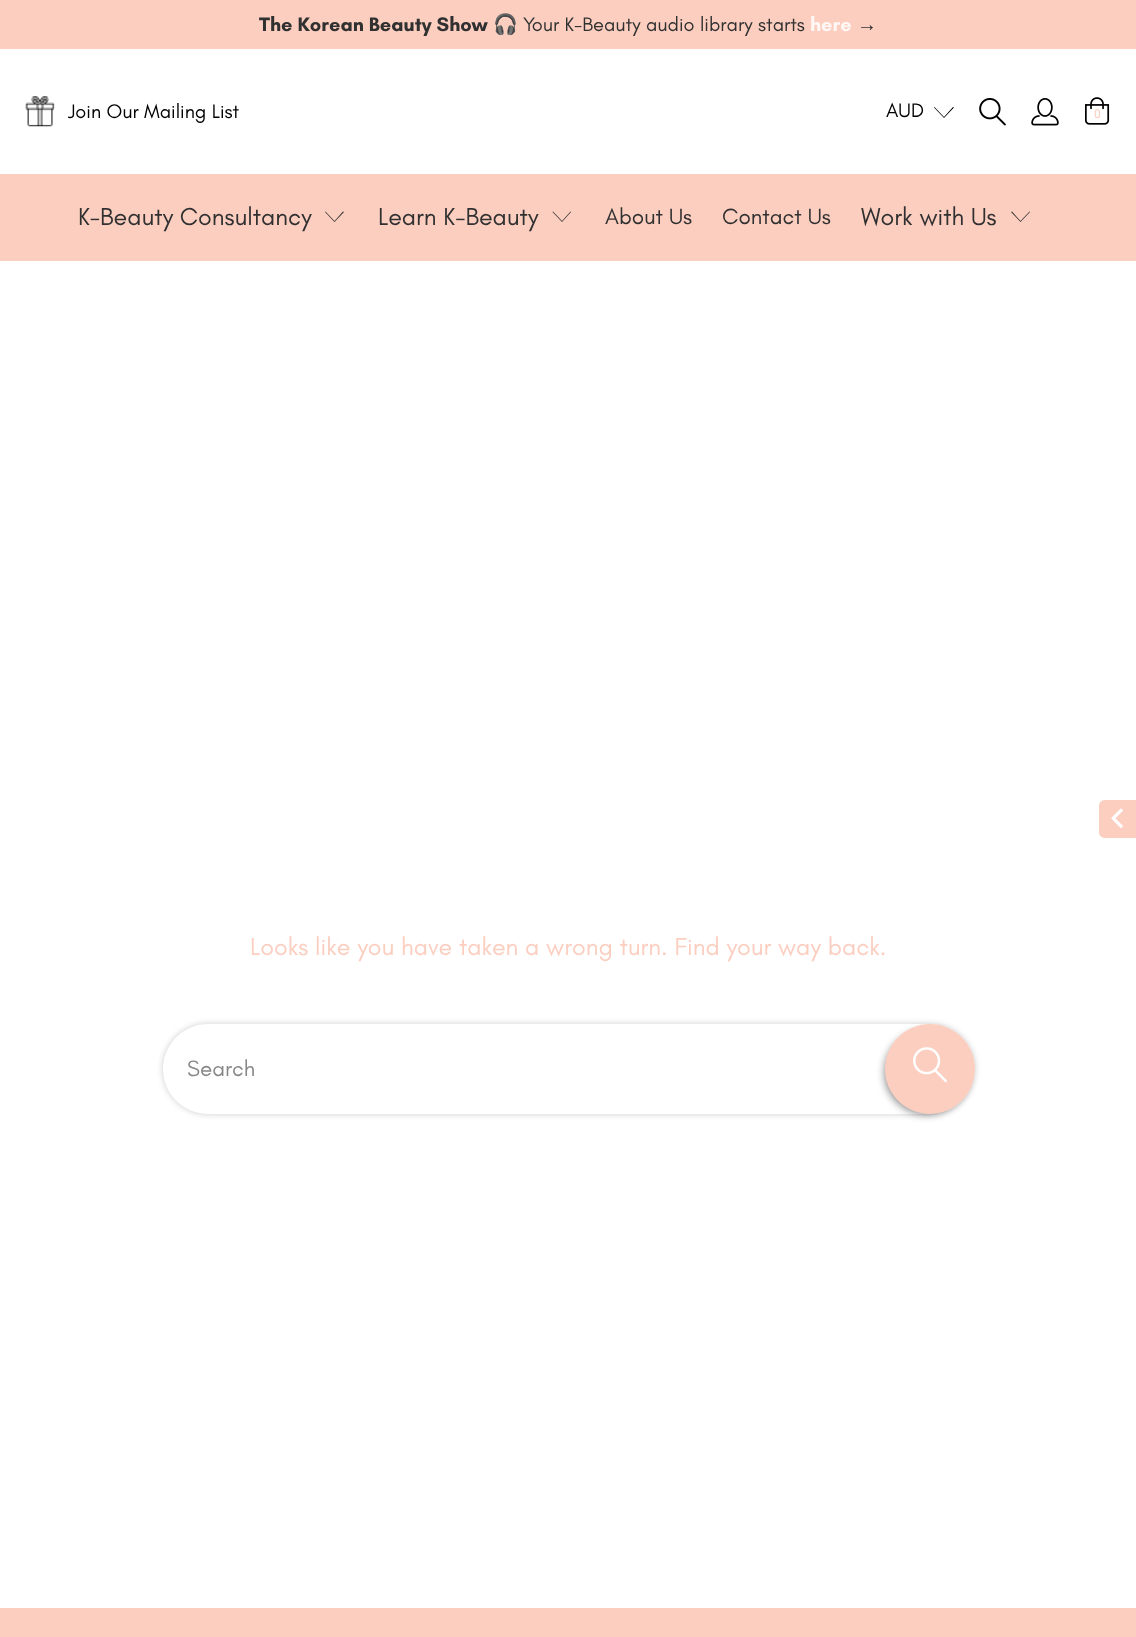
<svg xmlns="http://www.w3.org/2000/svg" width="1136" height="1637" viewBox="0 0 1136 1637">
  <rect width="100%" height="100%" fill="#fff"/>
  <path d="M0 0h1136v49H0z" fill="#fbcec0"/>
  <image x="25" y="96" width="30" height="31" href="img/1.png"/>
  <path d="M944 118L934 107.5L934.5 107L944 117L953 107L954 107.5Z" fill="#000"/>
  <image x="979" y="98" width="27" height="28" href="img/2.png"/>
  <image x="1031" y="98" width="28" height="28" href="img/3.png"/>
  <image x="1085" y="97" width="25" height="28" href="img/4.png"/>
  <path d="M0 174h1136v87H0z" fill="#fbcec0"/>
  <path d="M334.5 222L325 212L325.5 211.5L334.5 221L343 211.5L344 212Z" fill="#303030"/>
  <path d="M562 222L552.5 212L553 211.5L562 221L570.5 211.5L571 212Z" fill="#303030"/>
  <path d="M1020.5 222L1011 212L1012 211.5L1020.5 221L1029.5 211.5L1030 212Z" fill="#303030"/>
  <path d="M1105 800H1136V838H1105C1101.5 838 1099 835.5 1099 832V806C1099 802.5 1101.5 800 1105 800Z" fill="#fbcec0"/>
  <image x="1111" y="808" width="12" height="20" href="img/5.png"/>
  <rect x="163" y="1024" width="812" height="90" rx="45" fill="#00000033" filter="blur(3px)"/>
  <rect x="163" y="1024" width="812" height="90" rx="45" fill="#fff"/>
  <rect x="885" y="1031" width="83" height="83" rx="41.5" fill="#00000080" filter="blur(4px)"/>
  <circle cx="930" cy="1069" r="45" fill="#fbcec0"/>
  <image x="913" y="1047" width="34" height="36" href="img/6.png"/>
  <path d="M0 1608h1136v29H0z" fill="#fbcec0"/>
  <text x="259" y="31" font-family="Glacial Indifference" font-size="20" font-weight="bold" fill="#303030">The Korean Beauty Show</text>
  <text x="493" y="31" font-family="Noto Color Emoji" font-size="20" font-weight="bold" fill="#303030">🎧</text>
  <text x="523" y="31" font-family="Glacial Indifference" font-size="20" fill="#303030">Your K-Beauty audio library starts</text>
  <text x="810" y="31" font-family="Glacial Indifference" font-size="20" font-weight="bold" fill="#fff7f3">here</text>
  <text x="857" y="31" font-family="Liberation Serif" font-size="20" fill="#303030">→</text>
  <g font-family="Glacial Indifference" font-size="20" fill="#000">
    <text x="68" y="118">Join Our Mailing List</text>
    <text x="886" y="117">AUD</text>
  </g>
  <text x="1094" y="118" font-family="Roboto" font-size="12" fill="#fbcec0">0</text>
  <g font-family="Glacial Indifference" font-size="25" fill="#303030">
    <text x="78" y="225">K-Beauty Consultancy</text>
    <text x="378" y="225">Learn K-Beauty</text>
  </g>
  <g font-family="Glacial Indifference" font-size="22.5" fill="#303030">
    <text x="605" y="224">About Us</text>
    <text x="722" y="224">Contact Us</text>
  </g>
  <text x="861" y="225" font-family="Glacial Indifference" font-size="25" fill="#303030">Work with Us</text>
  <text x="250" y="955" font-family="Glacial Indifference" font-size="25" fill="#fbcec0">Looks like you have taken a wrong turn. Find your way back.</text>
  <text x="187" y="1076" font-family="Glacial Indifference" font-size="22.5" fill="#888">Search</text>
</svg>
